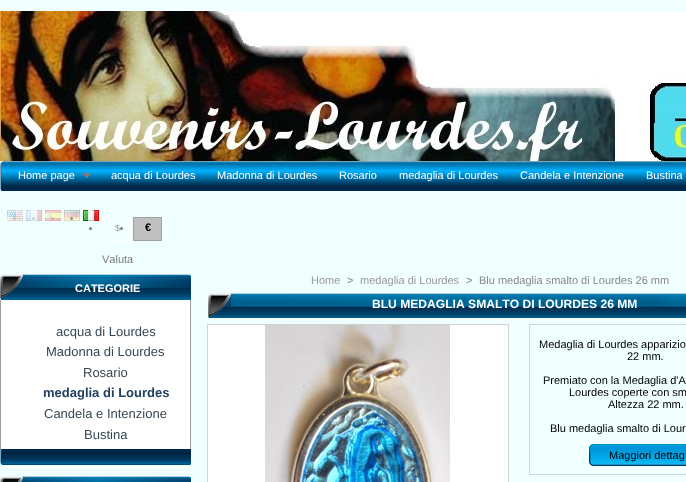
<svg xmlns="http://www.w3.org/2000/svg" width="686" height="482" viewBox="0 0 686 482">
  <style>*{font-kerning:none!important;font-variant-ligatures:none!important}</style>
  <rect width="100%" height="100%" fill="#f0ffff"/>
  <image x="0" y="11" width="686" height="150" href="img/1.png"/>
  <image x="0" y="161" width="7" height="30" href="img/2.png"/>
  <image x="7" y="161" width="679" height="30" href="img/3.png"/>
  <image x="82" y="173" width="9" height="5" href="img/4.png"/>
  <image x="7" y="210" width="16" height="11" href="img/5.png"/>
  <circle cx="14.5" cy="218.5" r="1.5" fill="#7b7b7b4d"/>
  <image x="26" y="210" width="16" height="11" href="img/6.png"/>
  <circle cx="33.5" cy="218.5" r="1.5" fill="#7b7b7b4d"/>
  <image x="45" y="210" width="16" height="11" href="img/7.png"/>
  <circle cx="52.5" cy="218.5" r="1.5" fill="#7b7b7b4d"/>
  <circle cx="71.5" cy="218.5" r="1.5" fill="#7b7b7b"/>
  <image x="64" y="210" width="16" height="11" href="img/8.png"/>
  <image x="83" y="210" width="16" height="11" href="img/9.png"/>
  <circle cx="90.5" cy="228.5" r="1.5" fill="#7b7b7b"/>
  <path d="M102.5 218.5h28v23H102.5z" fill="none" stroke="#fff"/>
  <circle cx="121.5" cy="228.5" r="1.5" fill="#7b7b7b"/>
  <path d="M133.5 217.5h28v23H133.5z" fill="#c0c0c0" stroke="#9f9f9f"/>
  <image x="0" y="449" width="191" height="16" href="img/10.png"/>
  <image x="0" y="274" width="191" height="26" href="img/11.png"/>
  <path d="M1 300h189v149H1z" fill="#fff"/>
  <path d="M190 300h1v149H190z" fill="#9e9e9e"/>
  <path d="M0 300h1v149H0z" fill="#9e9e9e"/>
  <image x="0" y="476" width="191" height="6" href="img/12.png"/>
  <image x="208" y="293" width="478" height="25" href="img/13.png"/>
  <path d="M207.5 324.5h301v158H207.5z" fill="none" stroke="#d0d1d5"/>
  <image x="208" y="325" width="300" height="157" href="img/14.png"/>
  <path d="M529.5 324.5h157v150H529.5z" fill="none" stroke="#d0d3d8"/>
  <image x="589" y="444" width="97" height="22" href="img/15.png"/>
  <g font-family="Liberation Sans" font-size="11" fill="#fff">
    <text x="18" y="179">Home page</text>
    <text x="111" y="179">acqua di Lourdes</text>
    <text x="217" y="179">Madonna di Lourdes</text>
    <text x="339" y="179">Rosario</text>
    <text x="399" y="179">medaglia di Lourdes</text>
    <text x="520" y="179">Candela e Intenzione</text>
    <text x="646" y="179">Bustina</text>
  </g>
  <text x="115" y="231" font-family="Liberation Sans" font-size="9" fill="#999">$</text>
  <text x="145" y="231" font-family="Liberation Sans" font-size="11" font-weight="bold" fill="#000">€</text>
  <text x="102" y="263" font-family="Liberation Sans" font-size="11" fill="#7b7b7b">Valuta</text>
  <text x="75" y="292" font-family="Liberation Sans" font-size="11" font-weight="bold" fill="#fff">CATEGORIE</text>
  <g font-family="Liberation Sans" font-size="13" fill="#374853">
    <text x="56" y="336">acqua di Lourdes</text>
    <text x="46" y="356">Madonna di Lourdes</text>
    <text x="83" y="377">Rosario</text>
  </g>
  <text x="43" y="397" font-family="Liberation Sans" font-size="13" font-weight="bold" fill="#234060">medaglia di Lourdes</text>
  <g font-family="Liberation Sans" font-size="13" fill="#374853">
    <text x="44" y="418">Candela e Intenzione</text>
    <text x="84" y="439">Bustina</text>
  </g>
  <text x="311" y="284" font-family="Liberation Sans" font-size="11" fill="#999">Home</text>
  <text x="347" y="284" font-family="Liberation Sans" font-size="11" fill="#888">&gt;</text>
  <text x="360" y="284" font-family="Liberation Sans" font-size="11" fill="#999">medaglia di Lourdes</text>
  <g font-family="Liberation Sans" font-size="11" fill="#888">
    <text x="466" y="284">&gt;</text>
    <text x="479" y="284">Blu medaglia smalto di Lourdes 26 mm</text>
  </g>
  <text x="372" y="308" font-family="Liberation Sans" font-size="12.1" font-weight="bold" fill="#fff">BLU MEDAGLIA SMALTO DI LOURDES 26 MM</text>
  <g font-family="Liberation Sans" font-size="11" fill="#000">
    <text x="539" y="348">Medaglia di Lourdes apparizio</text>
    <text x="627" y="360">22 mm.</text>
    <text x="543" y="384">Premiato con la Medaglia d'A</text>
    <text x="569" y="396">Lourdes coperte con sm</text>
    <text x="608" y="408">Altezza 22 mm.</text>
    <text x="550" y="432">Blu medaglia smalto di Lour</text>
    <text x="609" y="459">Maggiori dettag</text>
  </g>
</svg>
